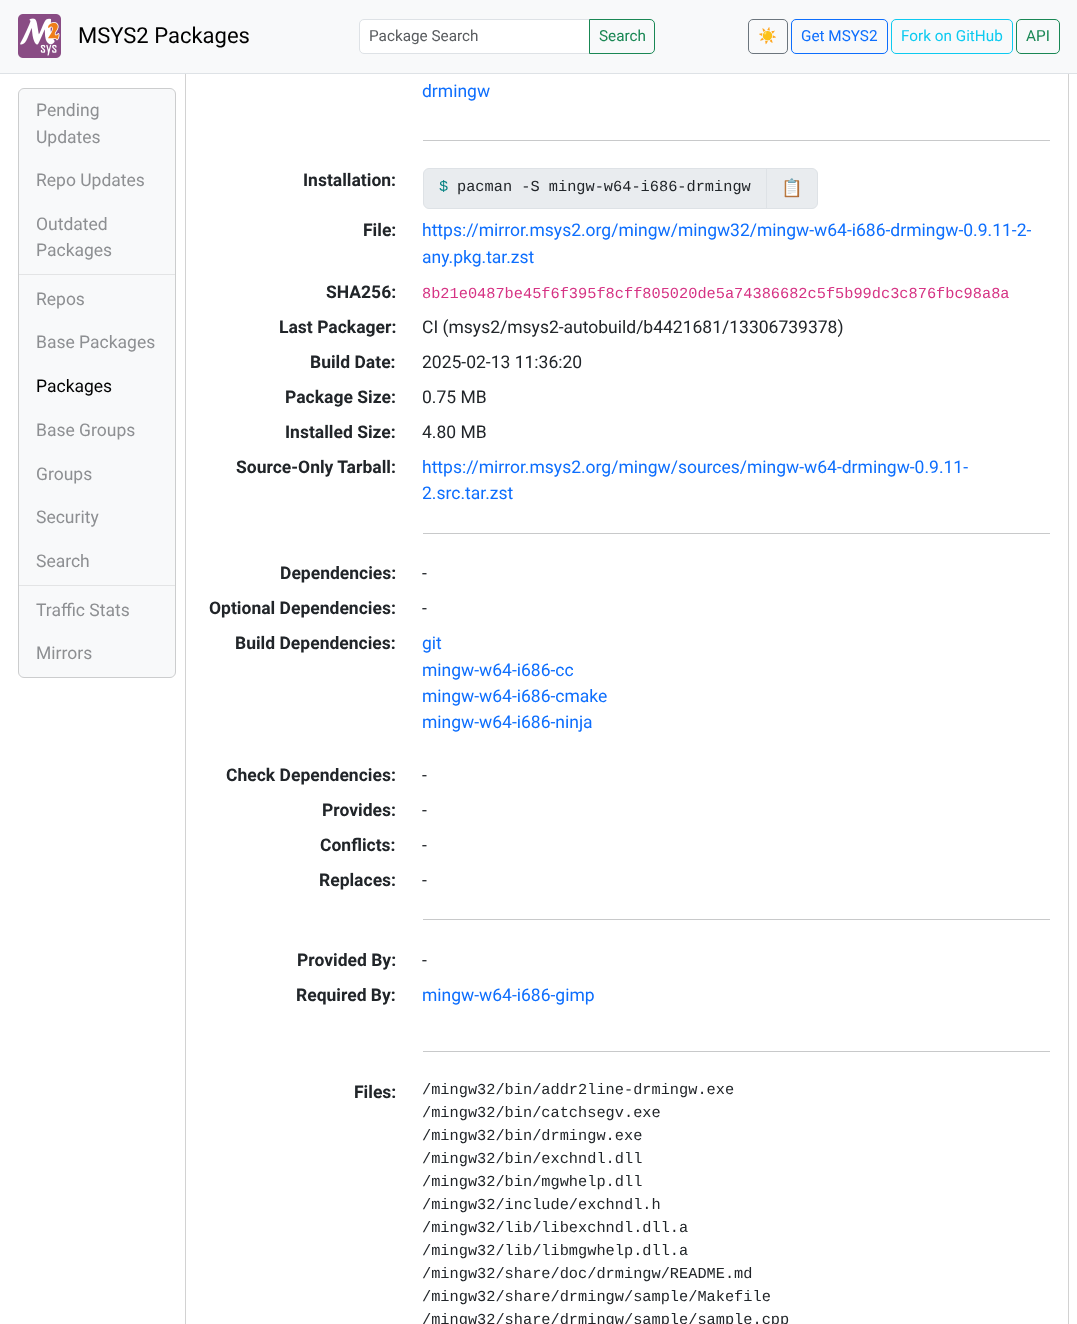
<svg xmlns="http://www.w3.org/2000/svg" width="1077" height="1324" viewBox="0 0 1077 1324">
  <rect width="100%" height="100%" fill="#fff"/>
  <path d="M185.5 -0.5h883v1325H185.5z" fill="none" stroke="#d2d2d2"/>
  <path d="M0 0h1077v73H0z" fill="#f8f9fa"/>
  <path d="M0 73h1077v1H0z" fill="#dee2e6"/>
  <image x="18" y="14" width="43" height="44" href="img/1.png"/>
  <path d="M363 20H589V53H363C361.5 53 360 51.5 360 50V23C360 21.5 361.5 20 363 20Z" fill="#fff"/>
  <path d="M364 19.5H589.5V53.5H364C361.5 53.5 359.5 51.5 359.5 49V24C359.5 21.5 361.5 19.5 364 19.5Z" fill="none" stroke="#dee2e6"/>
  <path d="M589.5 19.5H650C652.5 19.5 654.5 21.5 654.5 24V49C654.5 51.5 652.5 53.5 650 53.5H589.5Z" fill="none" stroke="#198754"/>
  <rect x="748.5" y="19.5" width="39" height="34" rx="4.5" fill="none" stroke="#6c757d"/>
  <rect x="791.5" y="19.5" width="96" height="34" rx="4.5" fill="none" stroke="#0d6efd"/>
  <rect x="891.5" y="19.5" width="121" height="34" rx="4.5" fill="none" stroke="#0dcaf0"/>
  <rect x="1016.5" y="19.5" width="43" height="34" rx="4.5" fill="none" stroke="#198754"/>
  <rect x="18.5" y="88.5" width="157" height="589" rx="5.5" fill="#f8f9fa" stroke="#cccdce"/>
  <path d="M19 274h156v1H19z" fill="#e3e4e5"/>
  <path d="M19 585h156v1H19z" fill="#e3e4e5"/>
  <path d="M423 140h627v1H423z" fill="#c8c9ca"/>
  <rect x="423.5" y="168.5" width="394" height="40" rx="5.5" fill="#e9ecef" stroke="#dee2e6"/>
  <path d="M766 169h1v39H766z" fill="#dee2e6"/>
  <path d="M423 533h627v1H423z" fill="#c8c9ca"/>
  <path d="M423 919h627v1H423z" fill="#c8c9ca"/>
  <path d="M423 1051h627v1H423z" fill="#c8c9ca"/>
  <text x="78" y="43" font-family="Roboto" font-size="22" fill="#000">MSYS2 Packages</text>
  <text x="369" y="41" font-family="Roboto" font-size="15.3" fill="#595c5f">Package Search</text>
  <text x="599" y="41" font-family="Roboto" font-size="15.3" fill="#198754">Search</text>
  <text x="758" y="41" font-family="Noto Color Emoji" font-size="15.3" fill="#6c757d">☀️</text>
  <text x="801" y="41" font-family="Roboto" font-size="15.3" fill="#0d6efd">Get MSYS2</text>
  <text x="901" y="41" font-family="Roboto" font-size="15.3" fill="#0dcaf0">Fork on GitHub</text>
  <text x="1026" y="41" font-family="Roboto" font-size="15.3" fill="#198754">API</text>
  <g font-family="Roboto" font-size="17.5" fill="#8d8f92">
    <text x="36" y="116">Pending</text>
    <text x="36" y="143">Updates</text>
    <text x="36" y="186">Repo Updates</text>
    <text x="36" y="230">Outdated</text>
    <text x="36" y="256">Packages</text>
    <text x="36" y="305">Repos</text>
    <text x="36" y="348">Base Packages</text>
  </g>
  <text x="36" y="392" font-family="Roboto" font-size="17.5" fill="#000">Packages</text>
  <g font-family="Roboto" font-size="17.5" fill="#8d8f92">
    <text x="36" y="436">Base Groups</text>
    <text x="36" y="480">Groups</text>
    <text x="36" y="523">Security</text>
    <text x="36" y="567">Search</text>
    <text x="36" y="616">Traffic Stats</text>
    <text x="36" y="659">Mirrors</text>
  </g>
  <text x="422" y="97" font-family="Roboto" font-size="17.5" fill="#0d6efd">drmingw</text>
  <text x="303" y="186" font-family="Roboto" font-size="17.5" font-weight="bold" fill="#212529">Installation:</text>
  <text x="439" y="191" font-family="Liberation Mono" font-size="15.3" fill="#008080">$</text>
  <text x="457" y="191" font-family="Liberation Mono" font-size="15.3" fill="#212529">pacman -S mingw-w64-i686-drmingw</text>
  <text x="781" y="194" font-family="Noto Color Emoji" font-size="17.5" fill="#212529">📋</text>
  <text x="363" y="236" font-family="Roboto" font-size="17.5" font-weight="bold" fill="#212529">File:</text>
  <g font-family="Roboto" font-size="17.5" fill="#0d6efd">
    <text x="422" y="236">https://mirror.msys2.org/mingw/mingw32/mingw-w64-i686-drmingw-0.9.11-2-</text>
    <text x="422" y="263">any.pkg.tar.zst</text>
  </g>
  <text x="326" y="298" font-family="Roboto" font-size="17.5" font-weight="bold" fill="#212529">SHA256:</text>
  <text x="422" y="298" font-family="Liberation Mono" font-size="15.3" fill="#d63384">8b21e0487be45f6f395f8cff805020de5a74386682c5f5b99dc3c876fbc98a8a</text>
  <text x="279" y="333" font-family="Roboto" font-size="17.5" font-weight="bold" fill="#212529">Last Packager:</text>
  <text x="422" y="333" font-family="Roboto" font-size="17.5" fill="#212529">CI (msys2/msys2-autobuild/b4421681/13306739378)</text>
  <text x="310" y="368" font-family="Roboto" font-size="17.5" font-weight="bold" fill="#212529">Build Date:</text>
  <text x="422" y="368" font-family="Roboto" font-size="17.5" fill="#212529">2025-02-13 11:36:20</text>
  <text x="285" y="403" font-family="Roboto" font-size="17.5" font-weight="bold" fill="#212529">Package Size:</text>
  <text x="422" y="403" font-family="Roboto" font-size="17.5" fill="#212529">0.75 MB</text>
  <text x="285" y="438" font-family="Roboto" font-size="17.5" font-weight="bold" fill="#212529">Installed Size:</text>
  <text x="422" y="438" font-family="Roboto" font-size="17.5" fill="#212529">4.80 MB</text>
  <text x="236" y="473" font-family="Roboto" font-size="17.5" font-weight="bold" fill="#212529">Source-Only Tarball:</text>
  <g font-family="Roboto" font-size="17.5" fill="#0d6efd">
    <text x="422" y="473">https://mirror.msys2.org/mingw/sources/mingw-w64-drmingw-0.9.11-</text>
    <text x="422" y="499">2.src.tar.zst</text>
  </g>
  <text x="280" y="579" font-family="Roboto" font-size="17.5" font-weight="bold" fill="#212529">Dependencies:</text>
  <text x="422" y="579" font-family="Roboto" font-size="17.5" fill="#212529">-</text>
  <text x="209" y="614" font-family="Roboto" font-size="17.5" font-weight="bold" fill="#212529">Optional Dependencies:</text>
  <text x="422" y="614" font-family="Roboto" font-size="17.5" fill="#212529">-</text>
  <text x="235" y="649" font-family="Roboto" font-size="17.5" font-weight="bold" fill="#212529">Build Dependencies:</text>
  <g font-family="Roboto" font-size="17.5" fill="#0d6efd">
    <text x="422" y="649">git</text>
    <text x="422" y="676">mingw-w64-i686-cc</text>
    <text x="422" y="702">mingw-w64-i686-cmake</text>
    <text x="422" y="728">mingw-w64-i686-ninja</text>
  </g>
  <text x="226" y="781" font-family="Roboto" font-size="17.5" font-weight="bold" fill="#212529">Check Dependencies:</text>
  <text x="422" y="781" font-family="Roboto" font-size="17.5" fill="#212529">-</text>
  <text x="322" y="816" font-family="Roboto" font-size="17.5" font-weight="bold" fill="#212529">Provides:</text>
  <text x="422" y="816" font-family="Roboto" font-size="17.5" fill="#212529">-</text>
  <text x="320" y="851" font-family="Roboto" font-size="17.5" font-weight="bold" fill="#212529">Conflicts:</text>
  <text x="422" y="851" font-family="Roboto" font-size="17.5" fill="#212529">-</text>
  <text x="319" y="886" font-family="Roboto" font-size="17.5" font-weight="bold" fill="#212529">Replaces:</text>
  <text x="422" y="886" font-family="Roboto" font-size="17.5" fill="#212529">-</text>
  <text x="297" y="966" font-family="Roboto" font-size="17.5" font-weight="bold" fill="#212529">Provided By:</text>
  <text x="422" y="966" font-family="Roboto" font-size="17.5" fill="#212529">-</text>
  <text x="296" y="1001" font-family="Roboto" font-size="17.5" font-weight="bold" fill="#212529">Required By:</text>
  <text x="422" y="1001" font-family="Roboto" font-size="17.5" fill="#0d6efd">mingw-w64-i686-gimp</text>
  <text x="354" y="1098" font-family="Roboto" font-size="17.5" font-weight="bold" fill="#212529">Files:</text>
  <g font-family="Liberation Mono" font-size="15.3" fill="#212529">
    <text x="422" y="1094">/mingw32/bin/addr2line-drmingw.exe</text>
    <text x="422" y="1117">/mingw32/bin/catchsegv.exe</text>
    <text x="422" y="1140">/mingw32/bin/drmingw.exe</text>
    <text x="422" y="1163">/mingw32/bin/exchndl.dll</text>
    <text x="422" y="1186">/mingw32/bin/mgwhelp.dll</text>
    <text x="422" y="1209">/mingw32/include/exchndl.h</text>
    <text x="422" y="1232">/mingw32/lib/libexchndl.dll.a</text>
    <text x="422" y="1255">/mingw32/lib/libmgwhelp.dll.a</text>
    <text x="422" y="1278">/mingw32/share/doc/drmingw/README.md</text>
    <text x="422" y="1301">/mingw32/share/drmingw/sample/Makefile</text>
    <text x="422" y="1324">/mingw32/share/drmingw/sample/sample.cpp</text>
  </g>
</svg>
